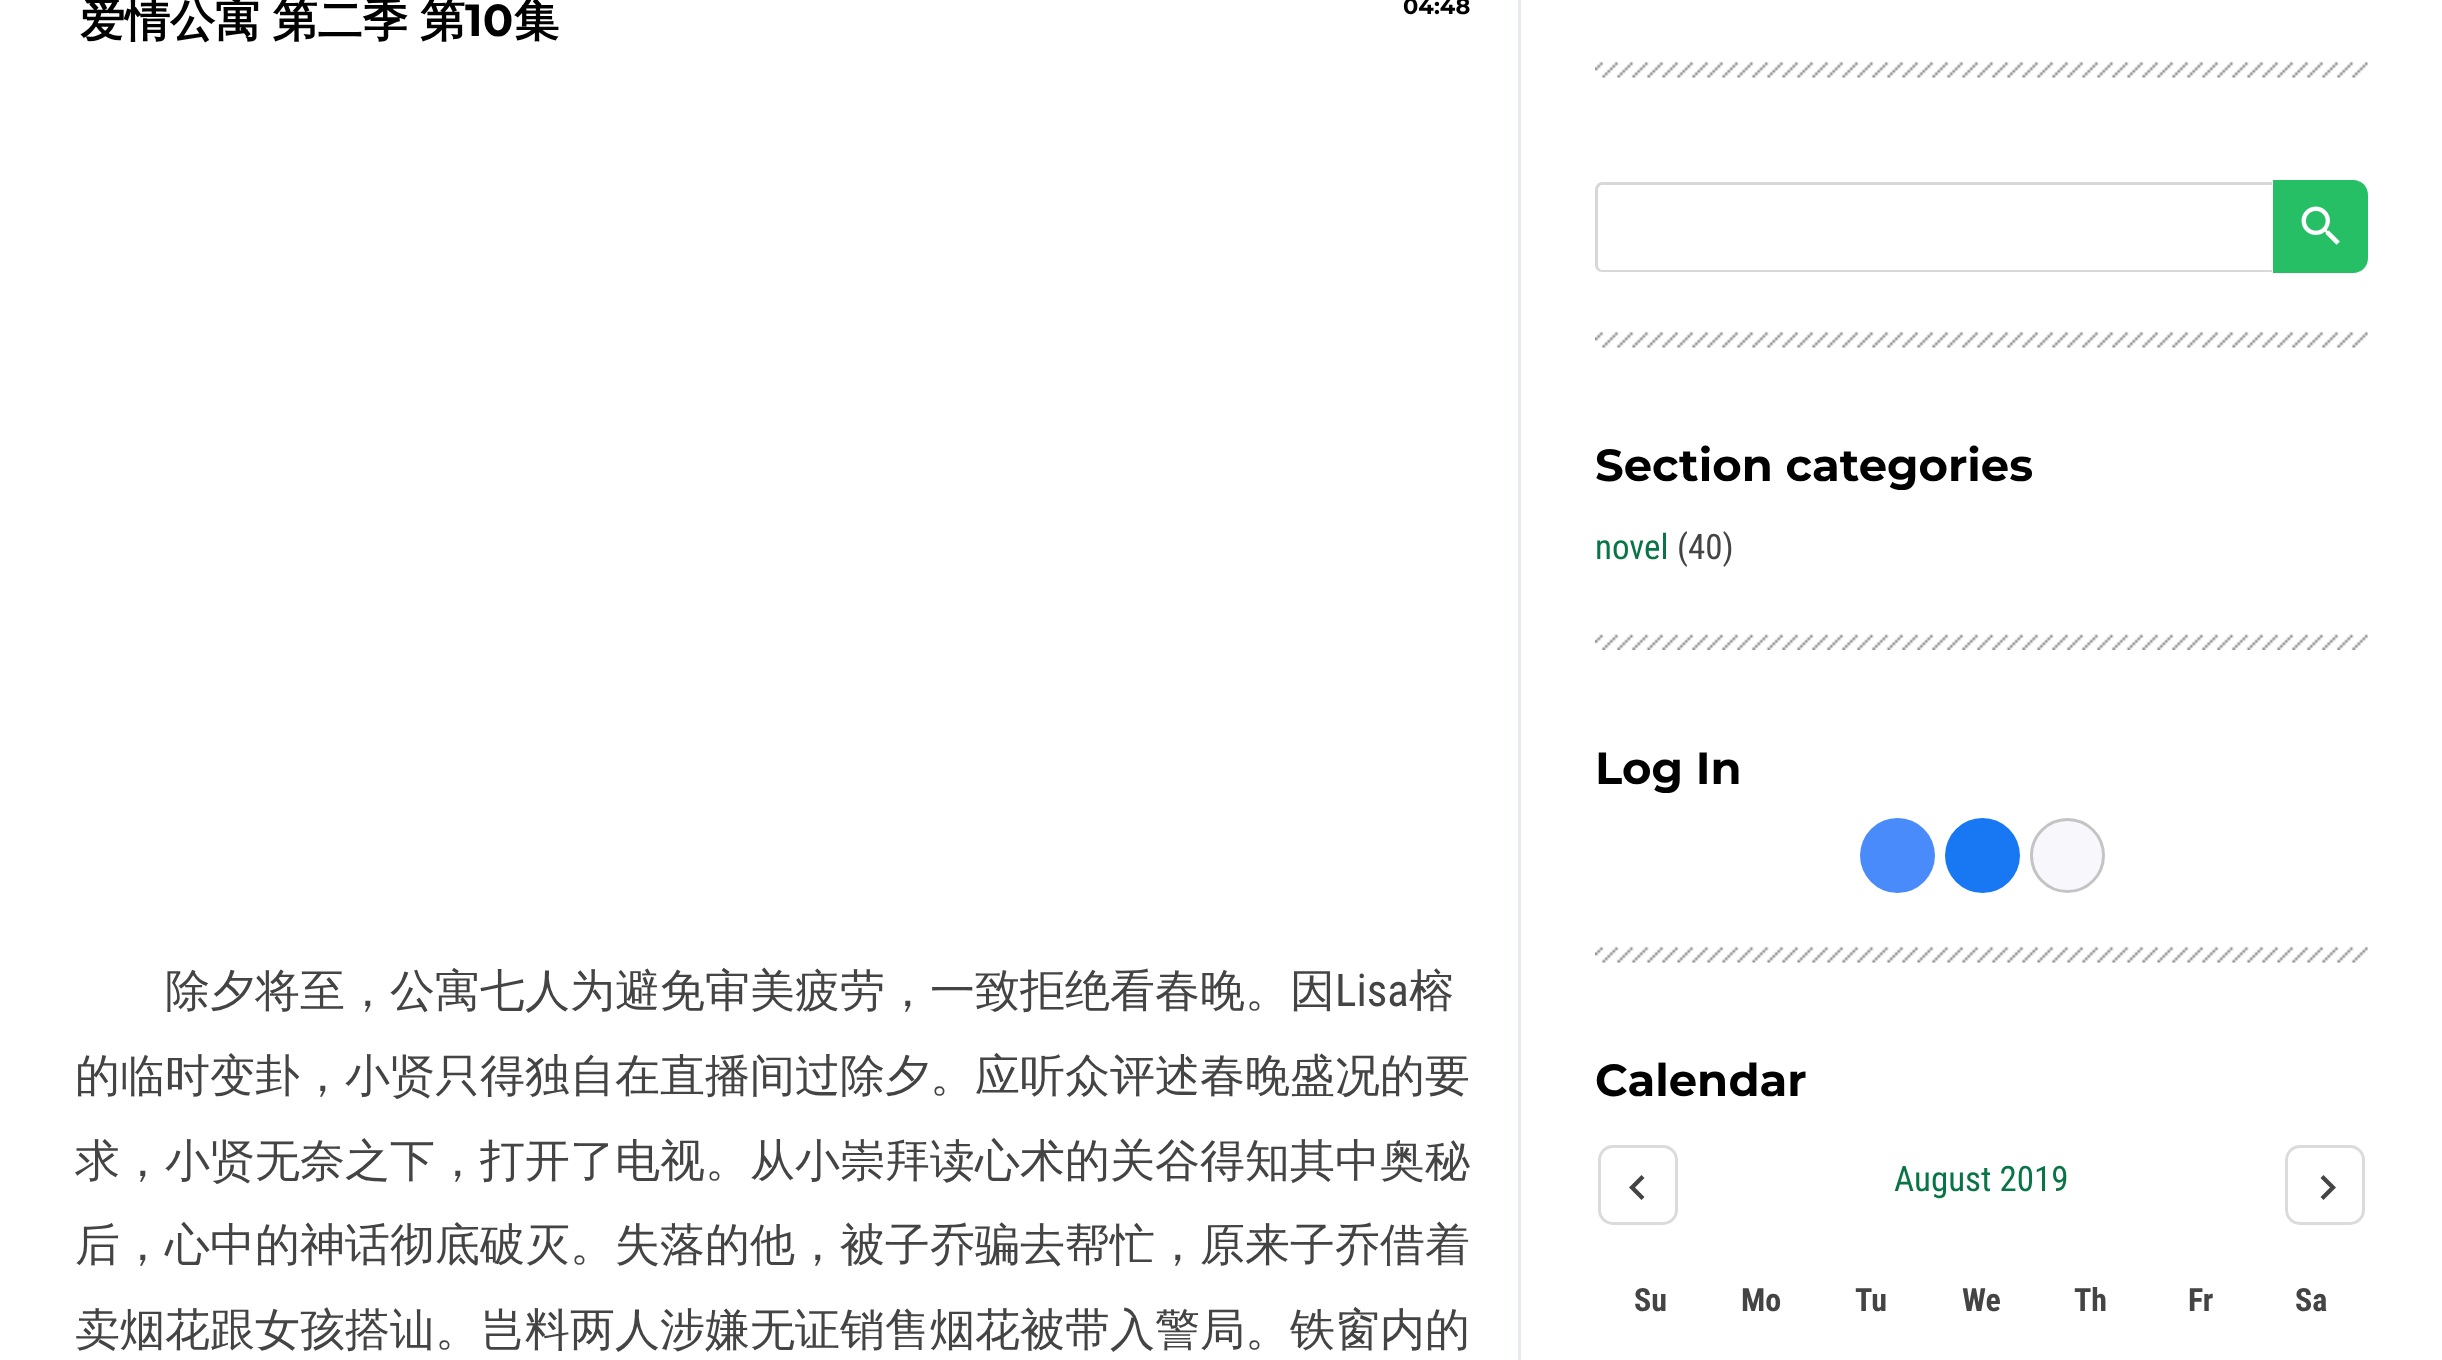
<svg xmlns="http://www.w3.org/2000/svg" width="2442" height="1360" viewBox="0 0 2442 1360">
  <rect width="100%" height="100%" fill="#fff"/>
  <path d="M1518 0h3v1360H1518z" fill="#e5ebf0"/>
  <image x="1595" y="61" width="773" height="17" href="img/1.png"/>
  <path d="M1602 182H2272V272H1602C1598 272 1595 269 1595 265V190C1595 186 1598 182 1602 182ZM1602 185H2272V270H1602C1600 270 1598 268 1598 265V190C1598 187 1600 185 1602 185Z" fill="#d8d8d8" fill-rule="evenodd"/>
  <path d="M2273 180H2353C2361.5 180 2368 186.5 2368 195V258C2368 266.5 2361.5 273 2353 273H2273Z" fill="#26bf66"/>
  <image x="2301" y="206" width="39" height="39" href="img/2.png"/>
  <image x="1595" y="331" width="773" height="17" href="img/1.png"/>
  <image x="1595" y="634" width="773" height="16" href="img/3.png"/>
  <circle cx="1897.5" cy="855.5" r="37.5" fill="#498bfa"/>
  <circle cx="1982.5" cy="855.5" r="37.5" fill="#1877f2"/>
  <circle cx="2067.5" cy="855.5" r="36" fill="#f8f8fc" stroke="#c4c4c4" stroke-width="3"/>
  <image x="1595" y="946" width="773" height="17" href="img/1.png"/>
  <rect x="1599.5" y="1146.5" width="77" height="77" rx="13.5" fill="none" stroke="#dbdbdb" stroke-width="3"/>
  <path d="M1644.5 1197L1641.5 1200L1629 1187.5L1641.5 1175L1644.5 1178L1635 1187.5Z" fill="#444"/>
  <rect x="2286.5" y="1146.5" width="77" height="77" rx="13.5" fill="none" stroke="#dbdbdb" stroke-width="3"/>
  <path d="M2320.5 1197L2330 1187.5L2320.5 1178L2323.5 1175L2336 1187.5L2323.5 1200Z" fill="#444"/>
  <text x="80" y="36" word-spacing="-1" font-family="WenQuanYi Zen Hei" font-size="45" font-weight="bold" fill="#000">爱情公寓 第二季 第</text>
  <text x="465" y="36" font-family="Montserrat" font-size="45" font-weight="bold" fill="#000">10</text>
  <text x="514" y="36" font-family="WenQuanYi Zen Hei" font-size="45" font-weight="bold" fill="#000">集</text>
  <text x="1403" y="14" font-family="Montserrat" font-size="22.5" font-weight="bold" fill="#000">04:48</text>
  <text x="165" y="1006" font-family="WenQuanYi Zen Hei" font-size="45" font-weight="500" fill="#444">除夕将至，公寓七人为避免审美疲劳，一致拒绝看春晚。因</text>
  <text x="1335" y="1006" font-family="Roboto Condensed" font-size="45" fill="#444">Lisa</text>
  <g font-family="WenQuanYi Zen Hei" font-size="45" font-weight="500" fill="#444">
    <text x="1409" y="1006">榕</text>
    <text x="75" y="1091">的临时变卦，小贤只得独自在直播间过除夕。应听众评述春晚盛况的要</text>
    <text x="75" y="1176">求，小贤无奈之下，打开了电视。从小崇拜读心术的关谷得知其中奥秘</text>
    <text x="75" y="1260">后，心中的神话彻底破灭。失落的他，被子乔骗去帮忙，原来子乔借着</text>
    <text x="75" y="1345">卖烟花跟女孩搭讪。岂料两人涉嫌无证销售烟花被带入警局。铁窗内的</text>
  </g>
  <text x="1595" y="481" font-family="Montserrat" font-size="45" font-weight="bold" fill="#000">Section categories</text>
  <text x="1595" y="559" font-family="Roboto Condensed" font-size="35" fill="#097546">novel</text>
  <text x="1677" y="559" font-family="Roboto Condensed" font-size="35" fill="#444">(40)</text>
  <g font-family="Montserrat" font-size="45" font-weight="bold" fill="#000">
    <text x="1595" y="784">Log In</text>
    <text x="1595" y="1096">Calendar</text>
  </g>
  <text x="1894" y="1191" font-family="Roboto Condensed" font-size="35" fill="#097546">August 2019</text>
  <g font-family="Roboto Condensed" font-size="32" font-weight="bold" fill="#444">
    <text x="1634" y="1311">Su</text>
    <text x="1741" y="1311">Mo</text>
    <text x="1855" y="1311">Tu</text>
    <text x="1962" y="1311">We</text>
    <text x="2074" y="1311">Th</text>
    <text x="2188" y="1311">Fr</text>
    <text x="2295" y="1311">Sa</text>
  </g>
</svg>
